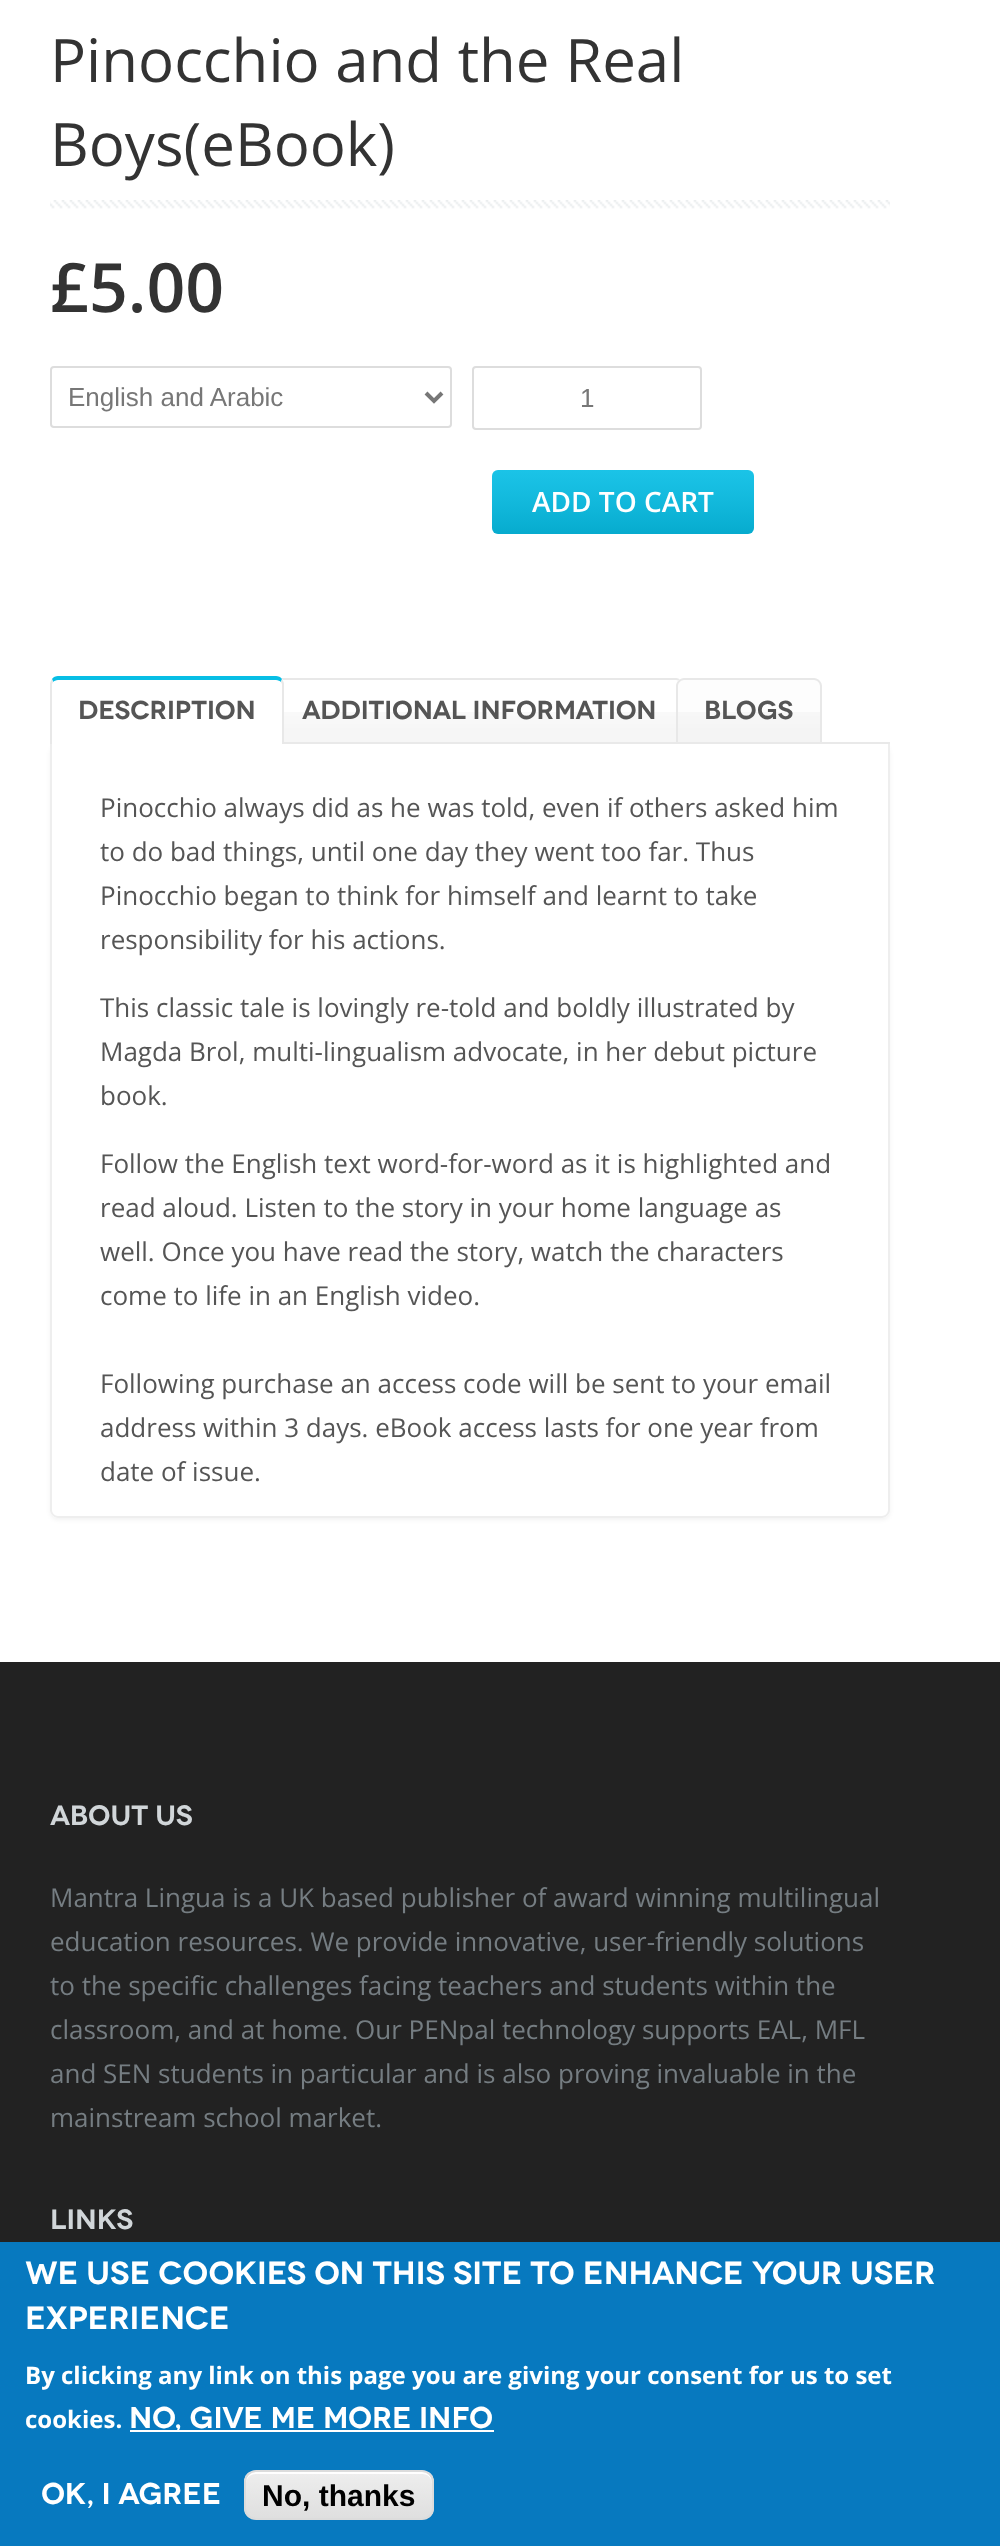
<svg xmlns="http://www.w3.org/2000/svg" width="1000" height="2546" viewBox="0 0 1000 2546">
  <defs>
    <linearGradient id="g1" gradientUnits="userSpaceOnUse" x1="623" y1="470" x2="623" y2="534"><stop offset="0" stop-color="#fff" stop-opacity="0.08"/><stop offset="1" stop-color="#000" stop-opacity="0.1"/></linearGradient>
    <clipPath id="clip1"><rect x="244" y="2470" width="190" height="50" rx="12"/></clipPath>
    <linearGradient id="g2" gradientUnits="userSpaceOnUse" x1="339" y1="2472" x2="339" y2="2518"><stop offset="0.05" stop-color="#ededed"/><stop offset="1" stop-color="#dfdfdf"/></linearGradient>
  </defs>
  <rect width="100%" height="100%" fill="#fff"/>
  <image x="50" y="200" width="840" height="9" href="img/1.png"/>
  <rect x="51" y="367" width="400" height="60" rx="3" fill="none" stroke="#ddd" stroke-width="2"/>
  <path d="M426 393L434 401L442 393" fill="none" stroke="#777" stroke-width="4"/>
  <rect x="473" y="367" width="228" height="62" rx="3" fill="none" stroke="#ddd" stroke-width="2"/>
  <rect x="492" y="470" width="262" height="64" rx="6" fill="#07bee5"/>
  <rect x="492" y="470" width="262" height="64" rx="6" fill="url(#g1)"/>
  <rect x="50" y="746" width="840" height="774" rx="8" fill="#0000000d" filter="blur(2px)"/>
  <image x="284" y="712" width="392" height="30" href="img/2.png"/>
  <path d="M282 678H676C680 678 684 682 684 686V744H274V686C274 682 278 678 282 678ZM282 680H676C679 680 682 683 682 686V744H276V686C276 683 279 680 282 680Z" fill="#e8e8e8" fill-rule="evenodd"/>
  <path d="M58 676H276C280.5 676 284 679.5 284 684V744H50V684C50 679.5 53.5 676 58 676Z" fill="#fff"/>
  <path d="M58 676C56 676 53 677 52 679L53 682C54 681 56 680 58 680H276C278 680 280 681 281 682L282 679C281 677 278 676 276 676Z" fill="#07bee5"/>
  <path d="M282 744H284V684C284 682 283 681 282 679L281 682L282 684Z" fill="#e8e8e8"/>
  <path d="M50 744H52V684L53 682L52 679C51 681 50 682 50 684Z" fill="#e8e8e8"/>
  <path d="M684 678H814C818.5 678 822 681.5 822 686V744H676V686C676 681.5 679.5 678 684 678Z" fill="#fdfdfd"/>
  <image x="678" y="712" width="142" height="30" href="img/3.png"/>
  <path d="M684 678H814C818 678 822 682 822 686V744H676V686C676 682 680 678 684 678ZM684 680H814C817 680 820 683 820 686V744H678V686C678 683 681 680 684 680Z" fill="#e8e8e8" fill-rule="evenodd"/>
  <path d="M284 742h606v2H284z" fill="#e9e9e9"/>
  <path d="M50 744H890V1510C890 1514.5 886.5 1518 882 1518H58C53.5 1518 50 1514.5 50 1510Z" fill="#fff"/>
  <path d="M50 744H890V1510C890 1514 886 1518 882 1518H58C54 1518 50 1514 50 1510ZM52 744H888V1510C888 1513 885 1516 882 1516H58C55 1516 52 1513 52 1510Z" fill="#eee" fill-rule="evenodd"/>
  <path d="M0 1662h1000v580H0z" fill="#222"/>
  <path d="M0 2242h1000v304H0z" fill="#0779bf"/>
  <path d="M130 2430h364v2H130z" fill="#fff"/>
  <g clip-path="url(#clip1)">
    <path d="M244 2472h190v46H244z" fill="url(#g2)"/>
  </g>
  <path d="M256 2474H422C428 2474 432 2478 432 2484V2482C432 2476 428 2472 422 2472H256C250 2472 246 2476 246 2482V2484C246 2478 250 2474 256 2474Z" fill="#fff"/>
  <rect x="245" y="2471" width="188" height="48" rx="11" fill="none" stroke="#dcdcdc" stroke-width="2"/>
  <g font-family="Open Sans" font-size="60" fill="#333">
    <text x="50" y="82">Pinocchio and the Real</text>
    <text x="50" y="166">Boys(eBook)</text>
  </g>
  <text x="50" y="312" font-family="Open Sans" font-size="68" font-weight="600" fill="#333">£5.00</text>
  <g font-family="Liberation Sans" font-size="26" fill="#777">
    <text x="68" y="406">English and Arabic</text>
    <text x="580" y="407">1</text>
  </g>
  <text x="532" y="512" font-family="Open Sans" font-size="28" font-weight="600" fill="#fff">ADD TO CART</text>
  <g font-family="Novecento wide" font-size="26" font-weight="600" fill="#555">
    <text x="78" y="719">Description</text>
    <text x="302" y="719">Additional information</text>
    <text x="704" y="719">Blogs</text>
  </g>
  <g font-family="Open Sans" font-size="26" fill="#555">
    <text x="100" y="817">Pinocchio always did as he was told, even if others asked him</text>
    <text x="100" y="861">to do bad things, until one day they went too far. Thus</text>
    <text x="100" y="905">Pinocchio began to think for himself and learnt to take</text>
    <text x="100" y="949">responsibility for his actions.</text>
    <text x="100" y="1017">This classic tale is lovingly re-told and boldly illustrated by</text>
    <text x="100" y="1061">Magda Brol, multi-lingualism advocate, in her debut picture</text>
    <text x="100" y="1105">book.</text>
    <text x="100" y="1173">Follow the English text word-for-word as it is highlighted and</text>
    <text x="100" y="1217">read aloud. Listen to the story in your home language as</text>
    <text x="100" y="1261">well. Once you have read the story, watch the characters</text>
    <text x="100" y="1305">come to life in an English video.</text>
    <text x="100" y="1393">Following purchase an access code will be sent to your email</text>
    <text x="100" y="1437">address within 3 days. eBook access lasts for one year from</text>
    <text x="100" y="1481">date of issue.</text>
  </g>
  <text x="50" y="1825" font-family="Novecento wide" font-size="28" font-weight="600" fill="#d1d6d9">About Us</text>
  <g font-family="Open Sans" font-size="26" fill="#757d82">
    <text x="50" y="1907">Mantra Lingua is a UK based publisher of award winning multilingual</text>
    <text x="50" y="1951">education resources. We provide innovative, user-friendly solutions</text>
    <text x="50" y="1995">to the specific challenges facing teachers and students within the</text>
    <text x="50" y="2039">classroom, and at home. Our PENpal technology supports EAL, MFL</text>
    <text x="50" y="2083">and SEN students in particular and is also proving invaluable in the</text>
    <text x="50" y="2127">mainstream school market.</text>
  </g>
  <text x="50" y="2229" font-family="Novecento wide" font-size="28" font-weight="600" fill="#d1d6d9">Links</text>
  <g font-family="Novecento wide" font-size="32" font-weight="600" fill="#fff">
    <text x="25" y="2284">We use cookies on this site to enhance your user</text>
    <text x="25" y="2329">experience</text>
  </g>
  <g font-family="Open Sans" font-size="24" font-weight="bold" fill="#fff">
    <text x="25" y="2384">By clicking any link on this page you are giving your consent for us to set</text>
    <text x="25" y="2428">cookies.</text>
  </g>
  <g font-family="Novecento wide" font-size="30" font-weight="600" fill="#fff">
    <text x="129" y="2428">No, give me more info</text>
    <text x="41" y="2504">OK, I agree</text>
  </g>
  <text x="262" y="2506" font-family="Liberation Sans" font-size="30" font-weight="bold" fill="#000">No, thanks</text>
</svg>
